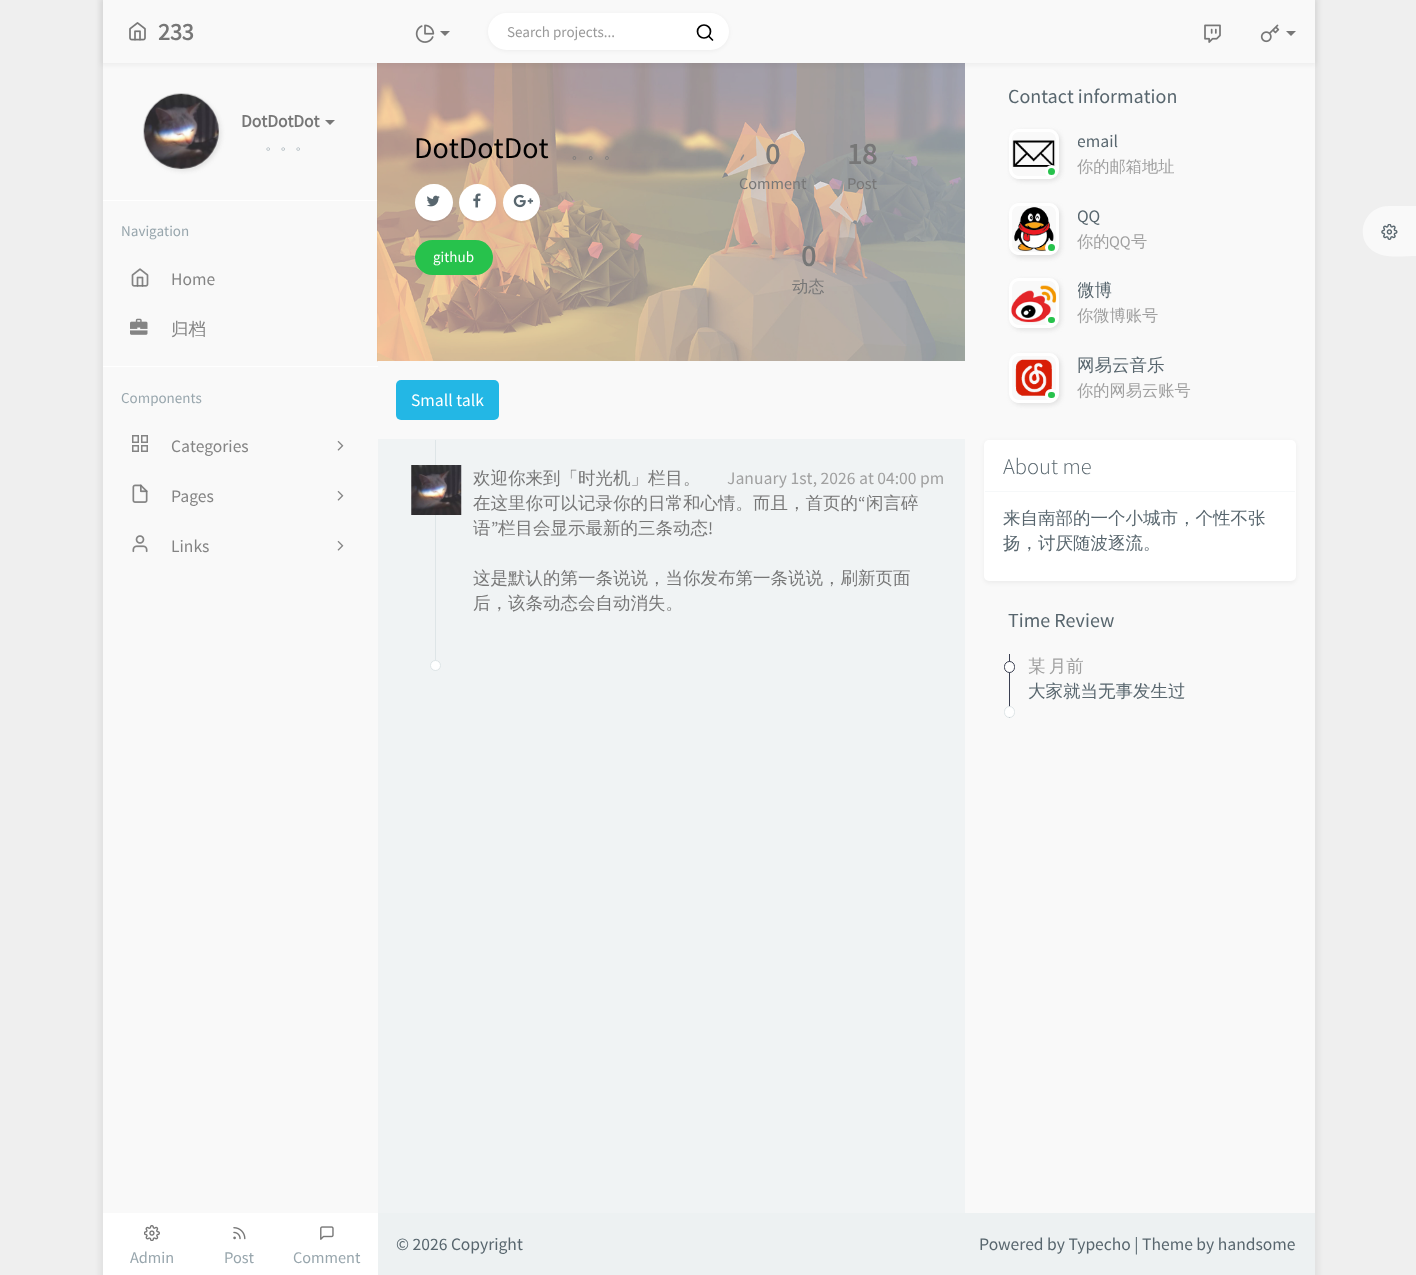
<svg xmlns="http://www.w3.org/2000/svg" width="1416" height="1275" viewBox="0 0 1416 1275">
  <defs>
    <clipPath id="clip1"><path d="M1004 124H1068V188H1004ZM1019 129H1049C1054.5 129 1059 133.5 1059 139V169C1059 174.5 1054.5 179 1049 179H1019C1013.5 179 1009 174.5 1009 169V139C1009 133.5 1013.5 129 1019 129Z" clip-rule="evenodd"/></clipPath>
    <clipPath id="clip2"><path d="M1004 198H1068V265H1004ZM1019 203H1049C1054.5 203 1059 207.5 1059 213V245C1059 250.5 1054.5 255 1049 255H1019C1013.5 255 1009 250.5 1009 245V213C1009 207.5 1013.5 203 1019 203Z" clip-rule="evenodd"/></clipPath>
    <clipPath id="clip3"><path d="M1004 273H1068V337H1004ZM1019 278H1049C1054.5 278 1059 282.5 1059 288V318C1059 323.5 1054.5 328 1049 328H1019C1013.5 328 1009 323.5 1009 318V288C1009 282.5 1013.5 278 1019 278Z" clip-rule="evenodd"/></clipPath>
    <clipPath id="clip4"><path d="M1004 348H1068V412H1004ZM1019 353H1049C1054.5 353 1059 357.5 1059 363V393C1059 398.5 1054.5 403 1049 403H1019C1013.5 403 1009 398.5 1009 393V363C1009 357.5 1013.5 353 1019 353Z" clip-rule="evenodd"/></clipPath>
    <clipPath id="clip5"><path d="M1078 129h193v50H1078z"/></clipPath>
    <clipPath id="clip6"><path d="M1078 203h193v51H1078z"/></clipPath>
    <clipPath id="clip7"><path d="M1078 278h193v51H1078z"/></clipPath>
  </defs>
  <rect width="100%" height="100%" fill="#efefef"/>
  <path d="M99 -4h1220v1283H99z" fill="#0000000d" filter="blur(2.5px)"/>
  <path d="M378 439h587v774H378z" fill="#f0f3f4"/>
  <path d="M103 63h275v1150H103z" fill="#f9f9f9"/>
  <path d="M103 200h275v1H103z" fill="#fff"/>
  <image x="377" y="63" width="588" height="299" href="img/15.png"/>
  <path d="M965 63h350v1150H965z" fill="#f9f9f9"/>
  <path d="M101 0h1215v65H101z" fill="#0000000d" filter="blur(2.5px)"/>
  <path d="M103 0h1212v63H103z" fill="#f9f9f9"/>
  <image x="129" y="22" width="17" height="19" href="img/1.png"/>
  <image x="415" y="24" width="20" height="19" href="img/2.png"/>
  <path d="M440 31H450L445 36Z" fill="#777"/>
  <rect x="488" y="14" width="241" height="37" rx="18.5" fill="#0000000d" filter="blur(2px)"/>
  <rect x="488" y="13" width="241" height="37" rx="18.5" fill="#fff"/>
  <circle cx="704" cy="31.5" r="6.5" fill="none" stroke="#000" stroke-width="1.7"/>
  <path d="M712.5 40L709 36.5" fill="none" stroke="#000" stroke-width="1.7" stroke-linecap="round" stroke-linejoin="round"/>
  <image x="1204" y="24" width="17" height="19" href="img/3.png"/>
  <image x="1260" y="24" width="20" height="19" href="img/4.png"/>
  <path d="M1286 31H1296L1291 36Z" fill="#777"/>
  <rect x="146" y="96" width="75" height="75" rx="37.5" fill="#e1e1e1" filter="blur(2px)"/>
  <image x="143" y="93" width="76" height="76" href="img/5.png"/>
  <path d="M325 120H335L330 125Z" fill="#777"/>
  <image x="131" y="268" width="18" height="19" href="img/6.png"/>
  <image x="130" y="318" width="18" height="17" href="img/7.png"/>
  <path d="M103 366h275v1H103z" fill="#fff"/>
  <image x="132" y="435" width="16" height="17" href="img/8.png"/>
  <image x="337" y="440" width="7" height="11" href="img/9.png"/>
  <image x="132" y="484" width="16" height="19" href="img/10.png"/>
  <image x="337" y="490" width="7" height="11" href="img/9.png"/>
  <image x="132" y="535" width="16" height="18" href="img/11.png"/>
  <image x="337" y="540" width="7" height="11" href="img/9.png"/>
  <path d="M103 1213h275v62H103z" fill="#fff"/>
  <image x="144" y="1225" width="16" height="16" href="img/12.png"/>
  <image x="233" y="1227" width="13" height="13" href="img/13.png"/>
  <image x="320" y="1226" width="14" height="14" href="img/14.png"/>
  <rect x="415" y="185" width="38" height="38" rx="19" fill="#5a5a5a1a" filter="blur(0.5px)"/>
  <rect x="415" y="184" width="38" height="37" rx="18.5" fill="#fff"/>
  <image x="426" y="195" width="14" height="12" href="img/16.png"/>
  <rect x="459" y="185" width="37" height="38" rx="18.5" fill="#5a5a5a1a" filter="blur(0.5px)"/>
  <circle cx="477.5" cy="202.5" r="18.5" fill="#fff"/>
  <image x="473" y="193" width="8" height="15" href="img/17.png"/>
  <rect x="503" y="185" width="37" height="38" rx="18.5" fill="#5a5a5a1a" filter="blur(0.5px)"/>
  <circle cx="521.5" cy="202.5" r="18.5" fill="#fff"/>
  <image x="513" y="194" width="21" height="14" href="img/18.png"/>
  <rect x="415" y="240" width="78" height="35" rx="17.5" fill="#27c24c"/>
  <path d="M378 361h587v78H378z" fill="#f9f9f9"/>
  <rect x="396" y="380" width="103" height="40" rx="5" fill="#23b7e5"/>
  <path d="M435 440h1v231H435z" fill="#dee5e7"/>
  <image x="411" y="465" width="51" height="50" href="img/19.png"/>
  <circle cx="435.5" cy="665.5" r="5" fill="#fff" stroke="#dee5e7"/>
  <g clip-path="url(#clip1)">
    <rect x="1011" y="131" width="50" height="50" rx="10" fill="#e1e1e1" filter="blur(2px)"/>
  </g>
  <rect x="1010.5" y="130.5" width="47" height="47" rx="8.5" fill="none" stroke="#fff" stroke-width="3"/>
  <image x="1012" y="140" width="43" height="27" href="img/20.png"/>
  <circle cx="1051.5" cy="171.5" r="5" fill="#27c24c" stroke="#fff" stroke-width="3"/>
  <g clip-path="url(#clip2)">
    <rect x="1011" y="205" width="50" height="53" rx="10" fill="#e1e1e1" filter="blur(2px)"/>
  </g>
  <rect x="1010.5" y="204.5" width="47" height="49" rx="8.5" fill="none" stroke="#fff" stroke-width="3"/>
  <image x="1014" y="207" width="40" height="44" href="img/21.png"/>
  <circle cx="1051.5" cy="247.5" r="5" fill="#27c24c" stroke="#fff" stroke-width="3"/>
  <g clip-path="url(#clip3)">
    <rect x="1011" y="280" width="50" height="50" rx="10" fill="#e1e1e1" filter="blur(2px)"/>
  </g>
  <rect x="1010.5" y="279.5" width="47" height="47" rx="8.5" fill="none" stroke="#fff" stroke-width="3"/>
  <image x="1011" y="285" width="46" height="38" href="img/22.png"/>
  <rect x="1046.5" y="315.5" width="10" height="9" rx="4.5" fill="#27c24c" stroke="#fff" stroke-width="3"/>
  <g clip-path="url(#clip4)">
    <rect x="1011" y="355" width="50" height="50" rx="10" fill="#e1e1e1" filter="blur(2px)"/>
  </g>
  <rect x="1010.5" y="354.5" width="47" height="47" rx="8.5" fill="none" stroke="#fff" stroke-width="3"/>
  <image x="1015" y="359" width="37" height="37" href="img/23.png"/>
  <rect x="1046.5" y="390.5" width="10" height="9" rx="4.5" fill="#27c24c" stroke="#fff" stroke-width="3"/>
  <rect x="984" y="441" width="312" height="142" rx="5" fill="#0000000d" filter="blur(2px)"/>
  <rect x="984" y="440" width="312" height="141" rx="5" fill="#fff"/>
  <path d="M985 491h310v1H985z" fill="#f6f8f9"/>
  <path d="M1009 654h1v64H1009z" fill="#3a3f51"/>
  <rect x="1004.5" y="661.5" width="10" height="11" rx="5" fill="#fff" stroke="#3a3f51"/>
  <rect x="1004.5" y="706.5" width="10" height="11" rx="5" fill="#fff" stroke="#dee5e7"/>
  <path d="M378 1213h937v62H378z" fill="#edf1f2"/>
  <path d="M1389 206H1416V256C1406 256 1388 258 1379 254C1352 244 1361 206 1389 206Z" fill="#f9f9f9"/>
  <image x="1381" y="224" width="17" height="16" href="img/24.png"/>
  <text x="158" y="40" font-family="Source Sans Pro" font-size="24" font-weight="bold" fill="#777">233</text>
  <text x="507" y="37" font-family="Source Sans Pro" font-size="15" fill="#999">Search projects...</text>
  <text x="241" y="127" font-family="Source Sans Pro" font-size="17.5" font-weight="bold" fill="#777">DotDotDot</text>
  <text x="265" y="149" font-family="WenQuanYi Zen Hei" font-size="15" font-weight="500" fill="#98a6ad">。。。</text>
  <text x="121" y="236" font-family="Source Sans Pro" font-size="15" fill="#98a6ad">Navigation</text>
  <text x="171" y="285" font-family="Source Sans Pro" font-size="17.5" fill="#848484">Home</text>
  <text x="171" y="335" font-family="WenQuanYi Zen Hei" font-size="17.5" font-weight="500" fill="#848484">归档</text>
  <text x="121" y="403" font-family="Source Sans Pro" font-size="15" fill="#98a6ad">Components</text>
  <g font-family="Source Sans Pro" font-size="17.5" fill="#848484">
    <text x="171" y="452">Categories</text>
    <text x="171" y="502">Pages</text>
    <text x="171" y="552">Links</text>
  </g>
  <g font-family="Source Sans Pro" font-size="16.25" fill="#98a6ad">
    <text x="130" y="1263">Admin</text>
    <text x="224" y="1263">Post</text>
    <text x="293" y="1263">Comment</text>
  </g>
  <text x="414" y="158" font-family="Source Sans Pro" font-size="30" fill="#000">DotDotDot</text>
  <text x="571" y="158" font-family="WenQuanYi Zen Hei" font-size="16.25" font-weight="500" fill="#777">。。。</text>
  <text x="433" y="262" font-family="Source Sans Pro" font-size="15" fill="#fff">github</text>
  <text x="765" y="164" font-family="Source Sans Pro" font-size="30" font-weight="bold" fill="#777">0</text>
  <text x="739" y="189" font-family="Source Sans Pro" font-size="16.25" fill="#777">Comment</text>
  <text x="847" y="164" font-family="Source Sans Pro" font-size="30" font-weight="bold" fill="#777">18</text>
  <text x="847" y="189" font-family="Source Sans Pro" font-size="16.25" fill="#777">Post</text>
  <text x="801" y="266" font-family="Source Sans Pro" font-size="30" font-weight="bold" fill="#777">0</text>
  <text x="792" y="292" font-family="WenQuanYi Zen Hei" font-size="16.25" font-weight="500" fill="#777">动态</text>
  <text x="411" y="406" font-family="Source Sans Pro" font-size="17.5" fill="#fff">Small talk</text>
  <g font-family="WenQuanYi Zen Hei" font-size="17.5" font-weight="500" fill="#777">
    <text x="473" y="484">欢迎你来到「时光机」栏目。</text>
    <text x="473" y="509">在这里你可以记录你的日常和心情。而且，首页的</text>
  </g>
  <text x="858" y="509" font-family="Source Sans Pro" font-size="17.5" fill="#777">“</text>
  <g font-family="WenQuanYi Zen Hei" font-size="17.5" font-weight="500" fill="#777">
    <text x="866" y="509">闲言碎</text>
    <text x="473" y="534">语</text>
  </g>
  <text x="491" y="534" font-family="Source Sans Pro" font-size="17.5" fill="#777">”</text>
  <text x="498" y="534" font-family="WenQuanYi Zen Hei" font-size="17.5" font-weight="500" fill="#777">栏目会显示最新的三条动态</text>
  <text x="708" y="534" font-family="Source Sans Pro" font-size="17.5" fill="#777">!</text>
  <g font-family="WenQuanYi Zen Hei" font-size="17.5" font-weight="500" fill="#777">
    <text x="473" y="584">这是默认的第一条说说，当你发布第一条说说，刷新页面</text>
    <text x="473" y="609">后，该条动态会自动消失。</text>
  </g>
  <text x="727" y="484" font-family="Source Sans Pro" font-size="17.5" fill="#a0a0a0">January 1st, 2026 at 04:00 pm</text>
  <text x="1008" y="103" font-family="Source Sans Pro" font-size="20" fill="#58666e">Contact information</text>
  <g clip-path="url(#clip5)">
    <text x="1077" y="147" font-family="Source Sans Pro" font-size="17.5" fill="#58666e">email</text>
  </g>
  <text x="1077" y="172" font-family="WenQuanYi Zen Hei" font-size="16.25" font-weight="500" fill="#a0a0a0">你的邮箱地址</text>
  <g clip-path="url(#clip6)">
    <text x="1077" y="222" font-family="Source Sans Pro" font-size="17.5" fill="#58666e">QQ</text>
  </g>
  <text x="1077" y="247" font-family="WenQuanYi Zen Hei" font-size="16.25" font-weight="500" fill="#a0a0a0">你的</text>
  <text x="1109" y="247" font-family="Source Sans Pro" font-size="16.25" fill="#a0a0a0">QQ</text>
  <text x="1131" y="247" font-family="WenQuanYi Zen Hei" font-size="16.25" font-weight="500" fill="#a0a0a0">号</text>
  <g clip-path="url(#clip7)">
    <text x="1077" y="296" font-family="WenQuanYi Zen Hei" font-size="17.5" font-weight="500" fill="#58666e">微博</text>
  </g>
  <text x="1077" y="321" font-family="WenQuanYi Zen Hei" font-size="16.25" font-weight="500" fill="#a0a0a0">你微博账号</text>
  <text x="1077" y="371" font-family="WenQuanYi Zen Hei" font-size="17.5" font-weight="500" fill="#58666e">网易云音乐</text>
  <text x="1077" y="396" font-family="WenQuanYi Zen Hei" font-size="16.25" font-weight="500" fill="#a0a0a0">你的网易云账号</text>
  <text x="1003" y="474" font-family="Source Sans Pro" font-size="22.5" font-weight="300" fill="#58666e">About me</text>
  <g font-family="WenQuanYi Zen Hei" font-size="17.5" font-weight="500" fill="#58666e">
    <text x="1003" y="524">来自南部的一个小城市，个性不张</text>
    <text x="1003" y="549">扬，讨厌随波逐流。</text>
  </g>
  <text x="1008" y="627" font-family="Source Sans Pro" font-size="20" fill="#58666e">Time Review</text>
  <text x="1028" y="672" word-spacing="-2" font-family="WenQuanYi Zen Hei" font-size="17.5" font-weight="500" fill="#a0a0a0">某 月前</text>
  <text x="1028" y="697" font-family="WenQuanYi Zen Hei" font-size="17.5" font-weight="500" fill="#58666e">大家就当无事发生过</text>
  <g font-family="Source Sans Pro" font-size="17.5" fill="#58666e">
    <text x="396" y="1250">© 2026 Copyright</text>
    <text x="979" y="1250">Powered by Typecho | Theme by handsome</text>
  </g>
</svg>
